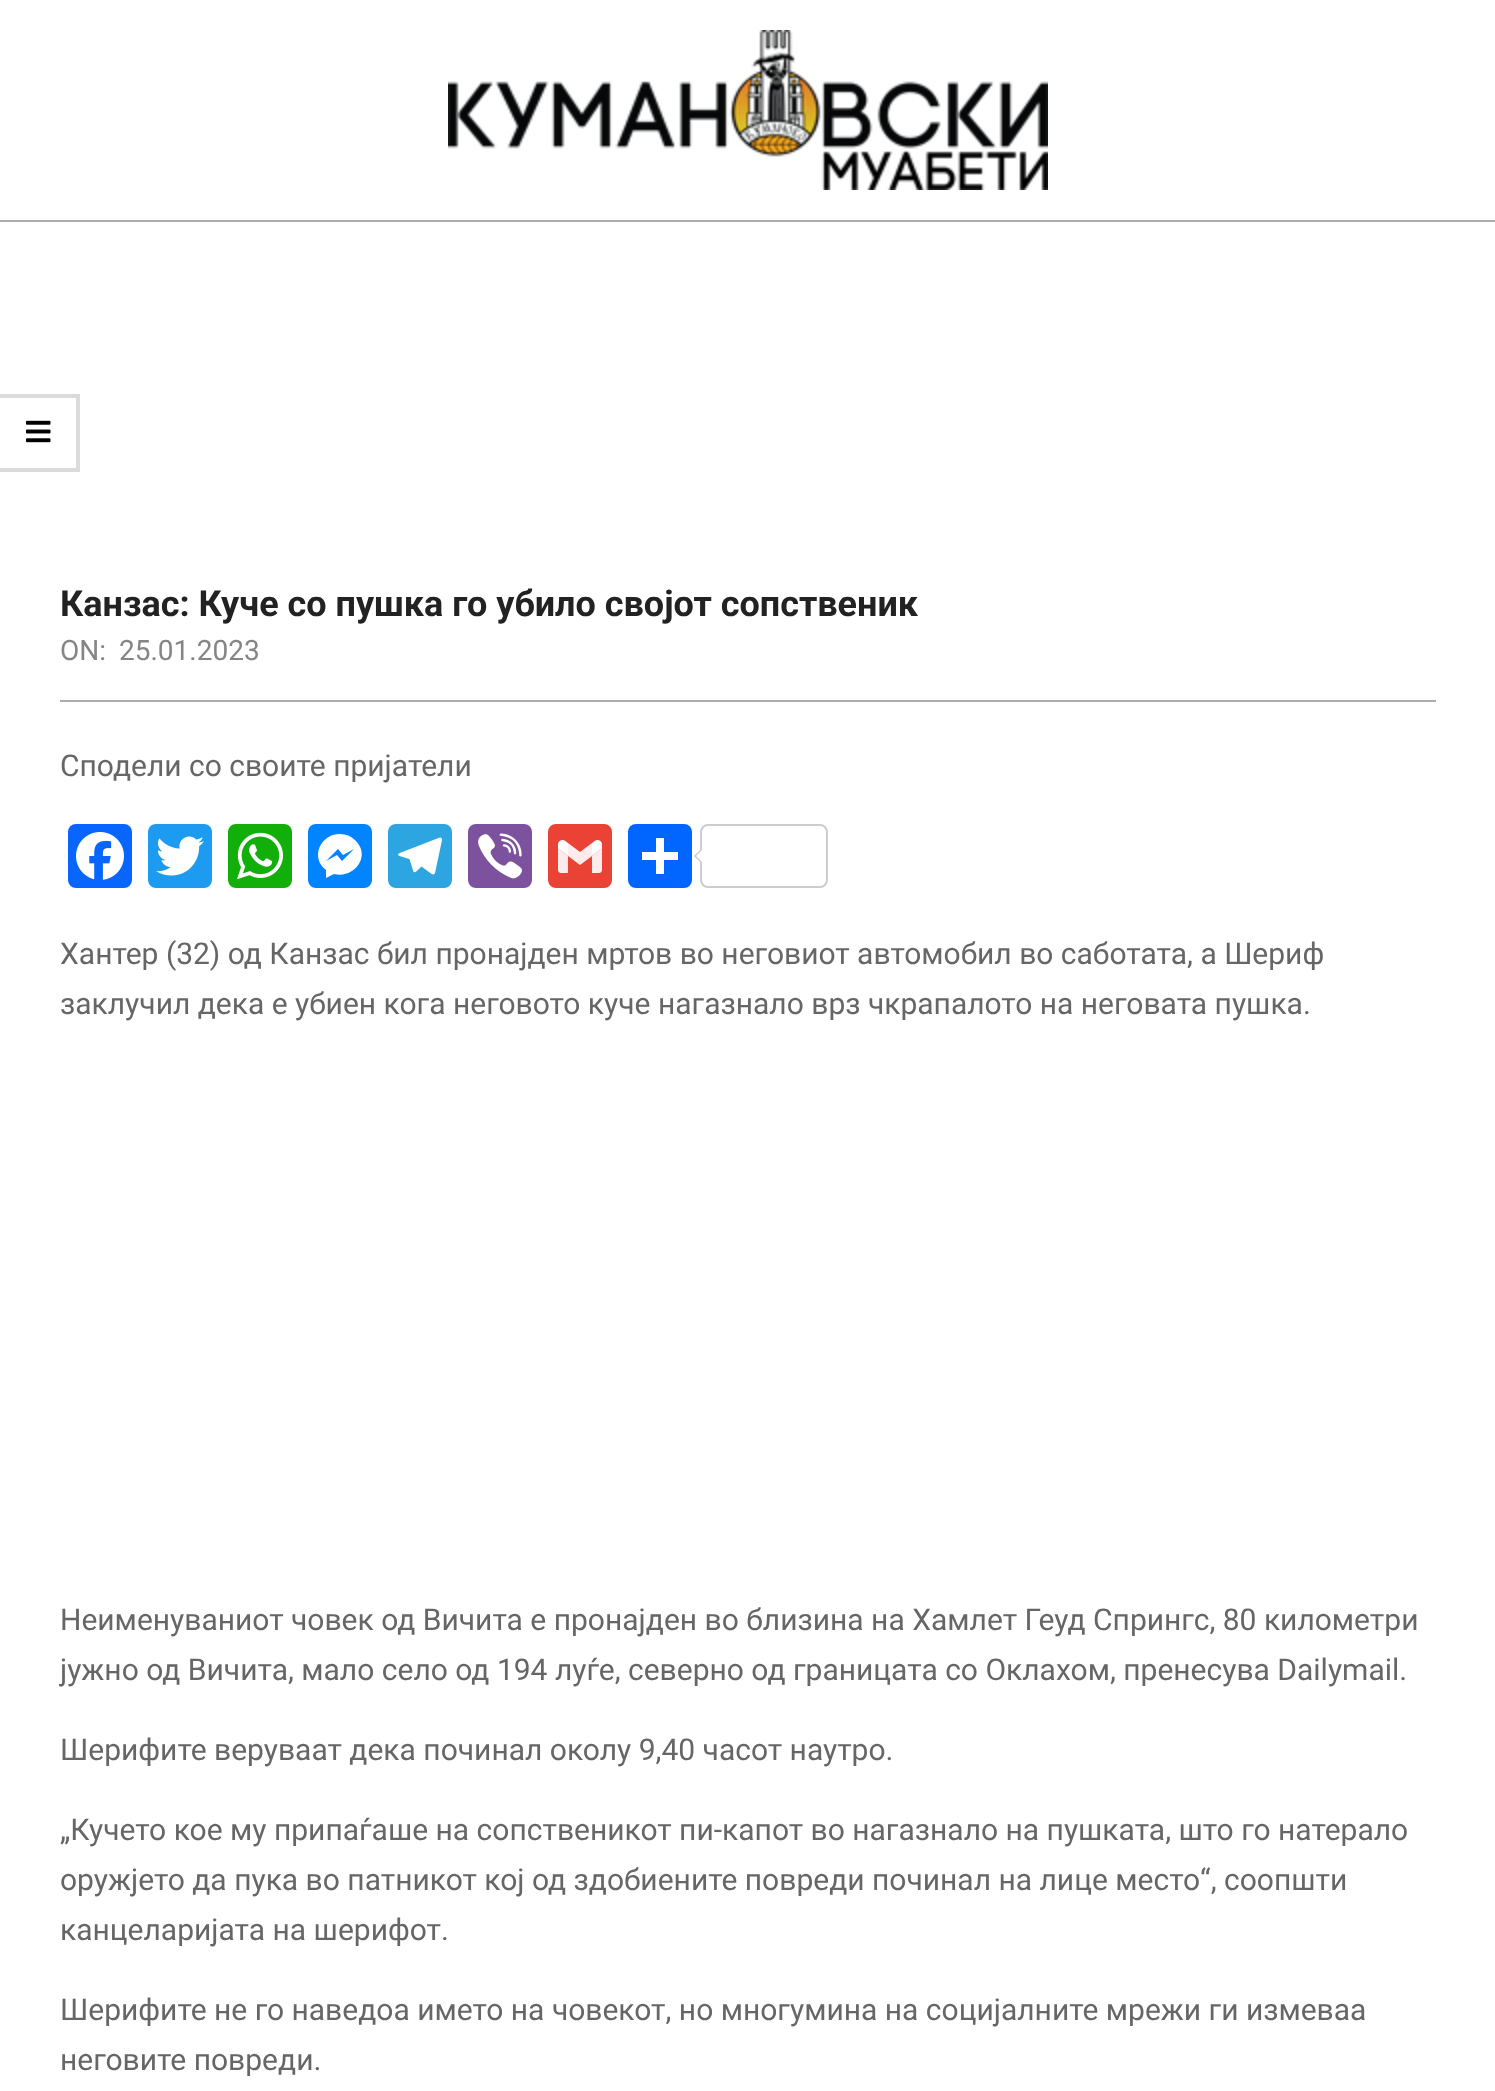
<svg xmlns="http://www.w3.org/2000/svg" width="1495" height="2091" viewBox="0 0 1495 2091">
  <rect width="100%" height="100%" fill="#fff"/>
  <image x="448" y="30" width="600" height="160" href="img/1.png"/>
  <path d="M0 220h1495v2H0z" fill="#ababab"/>
  <path d="M0 394H80L76 398H0Z" fill="#dbdbdb"/>
  <path d="M80 394V472L76 468V398Z" fill="#00000024"/>
  <path d="M80 472H0V468H76Z" fill="#00000024"/>
  <image x="26" y="420" width="25" height="23" href="img/2.png"/>
  <path d="M60 700h1376v2H60z" fill="#ababab"/>
  <rect x="68" y="824" width="64" height="64" rx="8" fill="#0866ff"/>
  <image x="76" y="832" width="48" height="48" href="img/3.png"/>
  <rect x="148" y="824" width="64" height="64" rx="8" fill="#1d9bf0"/>
  <image x="156" y="836" width="48" height="40" href="img/4.png"/>
  <rect x="228" y="824" width="64" height="64" rx="8" fill="#12af0a"/>
  <image x="237" y="832" width="46" height="48" href="img/5.png"/>
  <rect x="308" y="824" width="64" height="64" rx="8" fill="#0084ff"/>
  <path d="M340 834C320 834 310 858 326 870V878L334 874C354 879 372 856 355 840C351 836 346 834 340 834M342 861L337 855L326 861L338 849L343 855L354 849Z" fill="#fff"/>
  <rect x="388" y="824" width="64" height="64" rx="8" fill="#2ca5e0"/>
  <image x="398" y="837" width="44" height="38" href="img/6.png"/>
  <rect x="468" y="824" width="64" height="64" rx="8" fill="#7c529e"/>
  <image x="478" y="833" width="44" height="46" href="img/7.png"/>
  <rect x="548" y="824" width="64" height="64" rx="8" fill="#ea4335"/>
  <image x="558" y="840" width="44" height="33" href="img/8.png"/>
  <rect x="628" y="824" width="64" height="64" rx="8" fill="#0166ff"/>
  <path d="M656 838h8v36H656z" fill="#fff"/>
  <path d="M642 852h36v8H642z" fill="#fff"/>
  <rect x="701" y="825" width="126" height="62" rx="7" fill="none" stroke="#ccc" stroke-width="2"/>
  <path d="M702 848V864L694 856Z" fill="#ccc"/>
  <path d="M704 848V864L696 856Z" fill="#fff"/>
  <text x="60" y="616" font-family="Roboto" font-size="36" font-weight="bold" fill="#222">Канзас: Куче со пушка го убило својот сопственик</text>
  <g font-family="Roboto" font-size="28" fill="#858585">
    <text x="60" y="660">ON:</text>
    <text x="119" y="660">25.01.2023</text>
  </g>
  <g font-family="Roboto" font-size="30" fill="#666">
    <text x="60" y="776">Сподели со своите пријатели</text>
    <text x="60" y="964">Хантер (32) од Канзас бил пронајден мртов во неговиот автомобил во саботата, а Шериф</text>
    <text x="60" y="1014">заклучил дека е убиен кога неговото куче нагазнало врз чкрапалото на неговата пушка.</text>
    <text x="60" y="1630">Неименуваниот човек од Вичита е пронајден во близина на Хамлет Геуд Спрингс, 80 километри</text>
    <text x="60" y="1680">јужно од Вичита, мало село од 194 луѓе, северно од границата со Оклахом, пренесува Dailymail.</text>
    <text x="60" y="1760">Шерифите веруваат дека починал околу 9,40 часот наутро.</text>
    <text x="60" y="1840">„Кучето кое му припаѓаше на сопственикот пи-капот во нагазнало на пушката, што го натерало</text>
    <text x="60" y="1890">оружјето да пука во патникот кој од здобиените повреди починал на лице место“, соопшти</text>
    <text x="60" y="1940">канцеларијата на шерифот.</text>
    <text x="60" y="2020">Шерифите не го наведоа името на човекот, но многумина на социјалните мрежи ги измеваа</text>
    <text x="60" y="2070">неговите повреди.</text>
  </g>
</svg>
